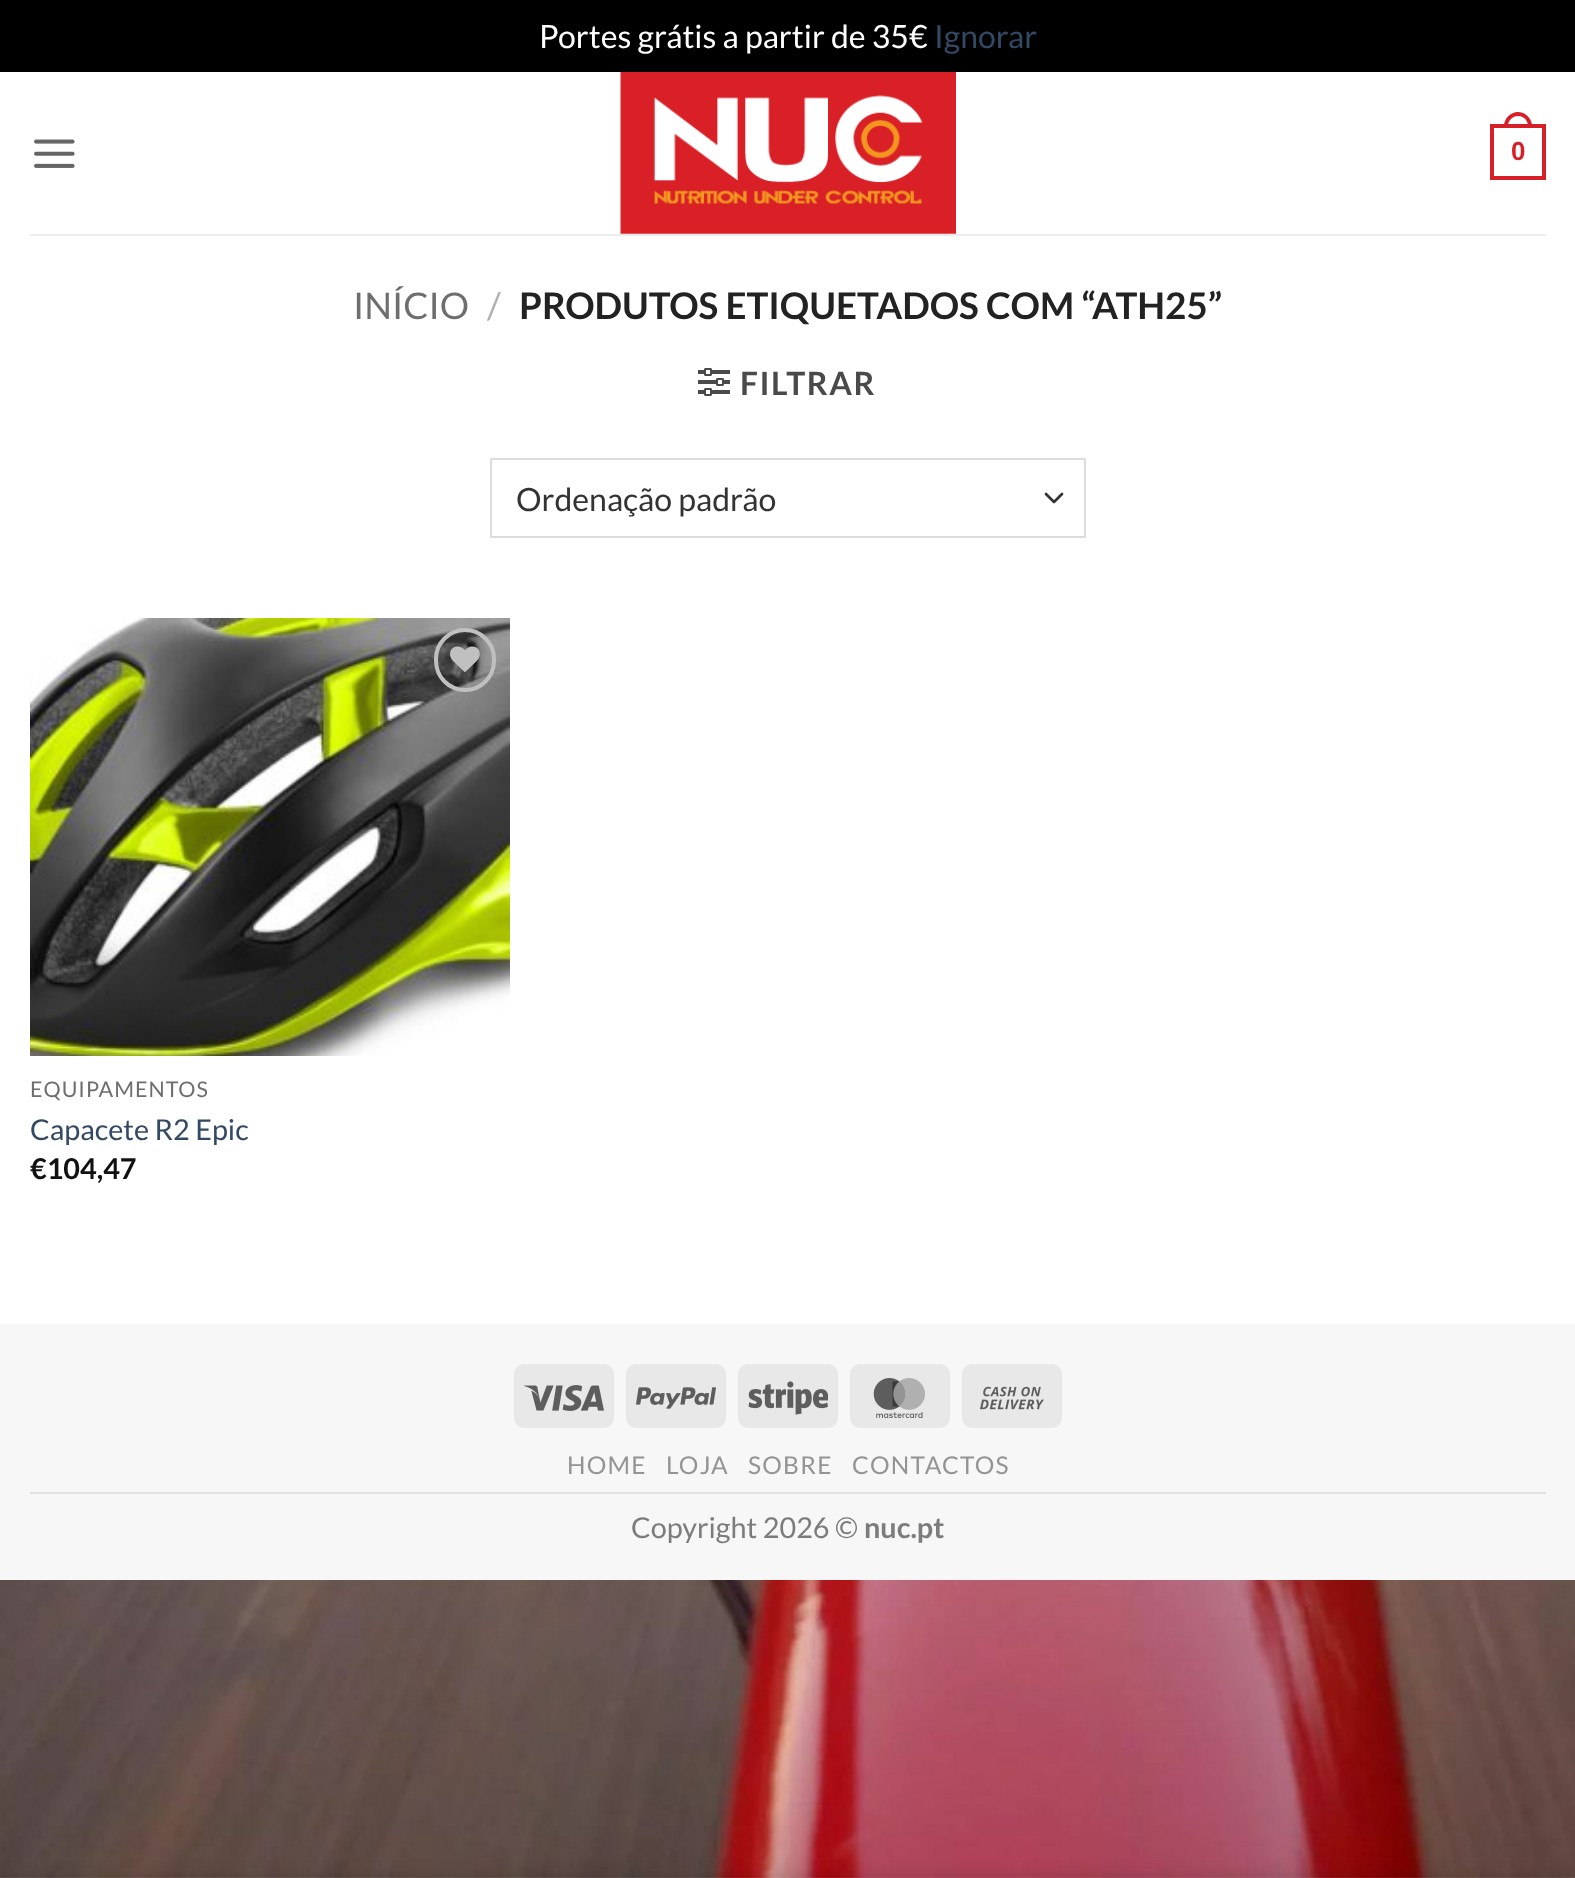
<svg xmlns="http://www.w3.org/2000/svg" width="1575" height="1878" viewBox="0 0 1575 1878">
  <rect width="100%" height="100%" fill="#fff"/>
  <image x="0" y="1580" width="1575" height="298" href="img/1.png"/>
  <path d="M0 0h1575v72H0z" fill="#000"/>
  <image x="34" y="139" width="41" height="29" href="img/2.png"/>
  <image x="620" y="72" width="336" height="162" href="img/3.png"/>
  <path d="M1492 126h52v52H1492z" fill="none" stroke="#d71f27" stroke-width="4"/>
  <path d="M1518 112C1525.5 112 1532 118.5 1532 126V128H1504V126C1504 118.5 1510.5 112 1518 112ZM1518 116C1523.5 116 1528 120.5 1528 126V128H1508V126C1508 120.5 1512.5 116 1518 116Z" fill="#d71f27" fill-rule="evenodd"/>
  <path d="M30 234h1516v2H30z" fill="#ededed"/>
  <image x="698" y="368" width="32" height="28" href="img/4.png"/>
  <path d="M1046 494L1054 502L1062 494" fill="none" stroke="#333" stroke-width="2.7" stroke-linecap="round" stroke-linejoin="round"/>
  <path d="M491 459h594v78H491z" fill="none" stroke="#ddd" stroke-width="2"/>
  <image x="30" y="618" width="480" height="438" href="img/5.png"/>
  <rect x="436" y="630" width="58" height="60" rx="29" fill="none" stroke="#c0c0c0" stroke-width="4"/>
  <image x="450" y="646" width="30" height="26" href="img/6.png"/>
  <path d="M0 1324h1575v256H0z" fill="#f7f7f7"/>
  <rect x="514" y="1364" width="100" height="64" rx="10" fill="#e8e8e8"/>
  <image x="524" y="1385" width="80" height="26" href="img/7.png"/>
  <rect x="626" y="1364" width="100" height="64" rx="10" fill="#e8e8e8"/>
  <image x="636" y="1387" width="80" height="22" href="img/8.png"/>
  <rect x="738" y="1364" width="100" height="64" rx="10" fill="#e8e8e8"/>
  <image x="748" y="1381" width="80" height="34" href="img/9.png"/>
  <rect x="850" y="1364" width="100" height="64" rx="10" fill="#e8e8e8"/>
  <image x="873" y="1378" width="52" height="40" href="img/10.png"/>
  <rect x="962" y="1364" width="100" height="64" rx="10" fill="#e8e8e8"/>
  <image x="980" y="1386" width="64" height="24" href="img/11.png"/>
  <path d="M30 1492h1516v2H30z" fill="#e2e2e2"/>
  <path d="M0 1878h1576v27H0z" fill="#00000024" filter="blur(9px)"/>
  <text x="539" y="48" font-family="Lato" font-size="32" fill="#fff">Portes grátis a partir de 35€</text>
  <text x="934" y="48" font-family="Lato" font-size="32" fill="#334862">Ignorar</text>
  <text x="1511" y="160" font-family="Liberation Sans" font-size="26" font-weight="bold" fill="#d71f27">0</text>
  <text x="353" y="319" font-family="Lato" font-size="36.75" fill="#6e6e6e">INÍCIO</text>
  <text x="487" y="319" font-family="Lato" font-size="36.75" fill="#b2b2b2">/</text>
  <text x="519" y="319" font-family="Lato" font-size="36.75" font-weight="bold" fill="#222">PRODUTOS ETIQUETADOS COM “ATH25”</text>
  <text x="740" y="395" font-family="Lato" font-size="32" font-weight="bold" letter-spacing="1.5" fill="#4a4a4a">FILTRAR</text>
  <text x="516" y="511" font-family="Lato" font-size="32" fill="#333">Ordenação padrão</text>
  <text x="30" y="1097" font-family="Lato" font-size="21.5" letter-spacing="1" fill="#6e6e6e">EQUIPAMENTOS</text>
  <text x="30" y="1140" font-family="Lato" font-size="28.75" fill="#334862">Capacete R2 Epic</text>
  <text x="30" y="1179" font-family="Lato" font-size="28.75" font-weight="bold" fill="#111">€104,47</text>
  <g font-family="Lato" font-size="24.5" letter-spacing="1.25" fill="#949494">
    <text x="567" y="1474">HOME</text>
    <text x="666" y="1474">LOJA</text>
    <text x="748" y="1474">SOBRE</text>
    <text x="852" y="1474">CONTACTOS</text>
  </g>
  <text x="631" y="1538" font-family="Lato" font-size="28.75" fill="#7c7c7c">Copyright 2026 ©</text>
  <text x="864" y="1538" font-family="Lato" font-size="28.75" font-weight="bold" fill="#7c7c7c">nuc.pt</text>
</svg>
